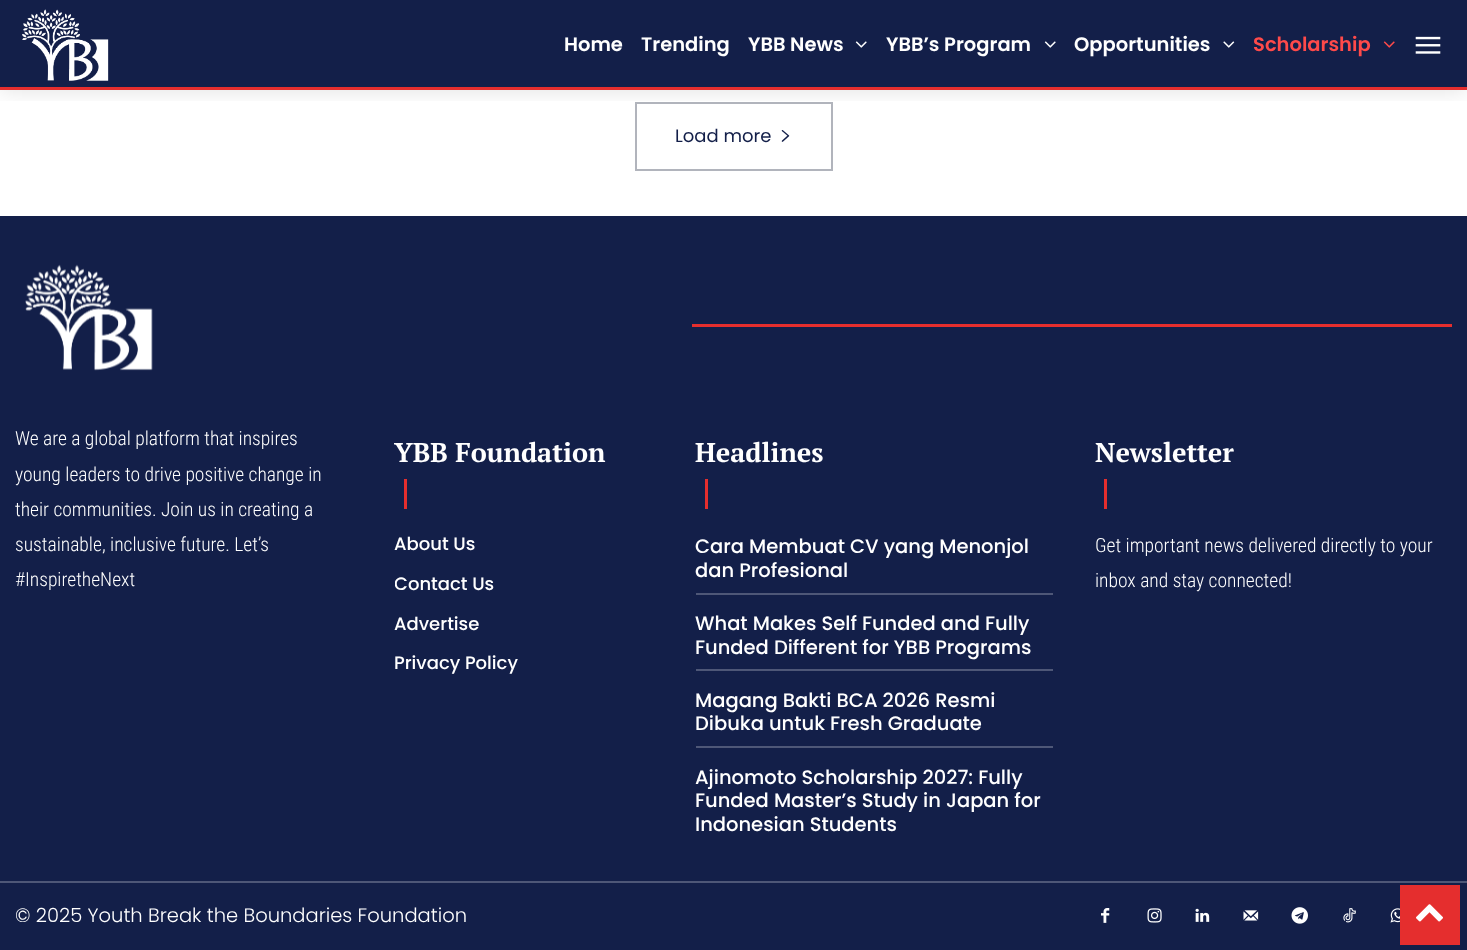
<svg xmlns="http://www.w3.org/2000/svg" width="1467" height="950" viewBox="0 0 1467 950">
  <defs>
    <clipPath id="clip1"><path d="M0 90h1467v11H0z"/></clipPath>
    <clipPath id="clip2"><path d="M395 525h259v159H395z"/></clipPath>
  </defs>
  <rect width="100%" height="100%" fill="#fff"/>
  <path d="M0 0h1467v87H0z" fill="#131f49"/>
  <path d="M0 87h1467v3H0z" fill="#e52e2e"/>
  <image x="22" y="9" width="87" height="72" href="img/1.png"/>
  <image x="1415" y="36" width="26" height="18" href="img/5.png"/>
  <path d="M636 103h196v67H636z" fill="none" stroke="#b1b4bc" stroke-width="2"/>
  <g clip-path="url(#clip1)">
    <path d="M0 0h1467v90H0z" fill="#0000001f" filter="blur(11px)"/>
  </g>
  <image x="855" y="41" width="12" height="7" href="img/2.png"/>
  <image x="1044" y="41" width="12" height="7" href="img/2.png"/>
  <image x="1223" y="41" width="12" height="7" href="img/3.png"/>
  <image x="1383" y="41" width="12" height="7" href="img/4.png"/>
  <image x="781" y="130" width="9" height="12" href="img/6.png"/>
  <path d="M0 216h1467v734H0z" fill="#131f49"/>
  <image x="25" y="264" width="128" height="107" href="img/7.png"/>
  <path d="M692 324h760v3H692z" fill="#e52e2e"/>
  <path d="M404 479h3v30H404z" fill="#e52e2e"/>
  <path d="M705 479h3v30H705z" fill="#e52e2e"/>
  <path d="M696 593h357v2H696z" fill="#4e5777"/>
  <path d="M696 669h357v2H696z" fill="#4e5777"/>
  <path d="M696 746h357v2H696z" fill="#4e5777"/>
  <path d="M1104 479h3v30H1104z" fill="#e52e2e"/>
  <path d="M0 881h1467v2H0z" fill="#4e5777"/>
  <image x="1101" y="908" width="9" height="15" href="img/8.png"/>
  <image x="1147" y="908" width="15" height="15" href="img/9.png"/>
  <image x="1195" y="908" width="15" height="14" href="img/10.png"/>
  <image x="1243" y="910" width="16" height="11" href="img/11.png"/>
  <image x="1291" y="907" width="17" height="17" href="img/12.png"/>
  <image x="1343" y="908" width="13" height="15" href="img/13.png"/>
  <image x="1390" y="908" width="10" height="15" href="img/14.png"/>
  <path d="M1400 885h60v60H1400z" fill="#e52e2e"/>
  <image x="1416" y="904" width="27" height="18" href="img/15.png"/>
  <g font-family="Poppins" font-size="19.5" font-weight="600" fill="#fff">
    <text x="564" y="51">Home</text>
    <text x="641" y="51">Trending</text>
    <text x="748" y="51">YBB News</text>
    <text x="886" y="51">YBB’s Program</text>
    <text x="1074" y="51">Opportunities</text>
  </g>
  <text x="1253" y="51" font-family="Poppins" font-size="19.5" font-weight="600" fill="#ff4a4a">Scholarship</text>
  <text x="675" y="142" font-family="Poppins" font-size="18" fill="#131f49">Load more</text>
  <g font-family="Roboto Condensed" font-size="19.5" font-weight="300" fill="#fff">
    <text x="15" y="445">We are a global platform that inspires</text>
    <text x="15" y="481">young leaders to drive positive change in</text>
    <text x="15" y="516">their communities. Join us in creating a</text>
    <text x="15" y="551">sustainable, inclusive future. Let’s</text>
    <text x="15" y="586">#InspiretheNext</text>
  </g>
  <text x="394" y="462" font-family="PT Serif" font-size="27" font-weight="bold" fill="#fff">YBB Foundation</text>
  <text x="394" y="550" font-family="Poppins" font-size="18" font-weight="500" fill="#fff">About Us</text>
  <g clip-path="url(#clip2)">
    <text x="394" y="590" font-family="Poppins" font-size="18" font-weight="500" fill="#fff">Contact Us</text>
  </g>
  <g font-family="Poppins" font-size="18" font-weight="500" fill="#fff">
    <text x="394" y="630">Advertise</text>
    <text x="394" y="669">Privacy Policy</text>
  </g>
  <text x="695" y="462" font-family="PT Serif" font-size="27" font-weight="bold" fill="#fff">Headlines</text>
  <g font-family="Poppins" font-size="19.5" font-weight="500" fill="#fff">
    <text x="695" y="553">Cara Membuat CV yang Menonjol</text>
    <text x="695" y="577">dan Profesional</text>
    <text x="695" y="630">What Makes Self Funded and Fully</text>
    <text x="695" y="654">Funded Different for YBB Programs</text>
    <text x="695" y="707">Magang Bakti BCA 2026 Resmi</text>
    <text x="695" y="730">Dibuka untuk Fresh Graduate</text>
    <text x="695" y="784">Ajinomoto Scholarship 2027: Fully</text>
    <text x="695" y="807">Funded Master’s Study in Japan for</text>
    <text x="695" y="831">Indonesian Students</text>
  </g>
  <text x="1095" y="462" font-family="PT Serif" font-size="27" font-weight="bold" fill="#fff">Newsletter</text>
  <g font-family="Roboto Condensed" font-size="19.5" font-weight="300" fill="#fff">
    <text x="1095" y="552">Get important news delivered directly to your</text>
    <text x="1095" y="587">inbox and stay connected!</text>
  </g>
  <text x="15" y="922" font-family="Poppins" font-size="19.5" font-weight="300" fill="#fff">© 2025 Youth Break the Boundaries Foundation</text>
</svg>
